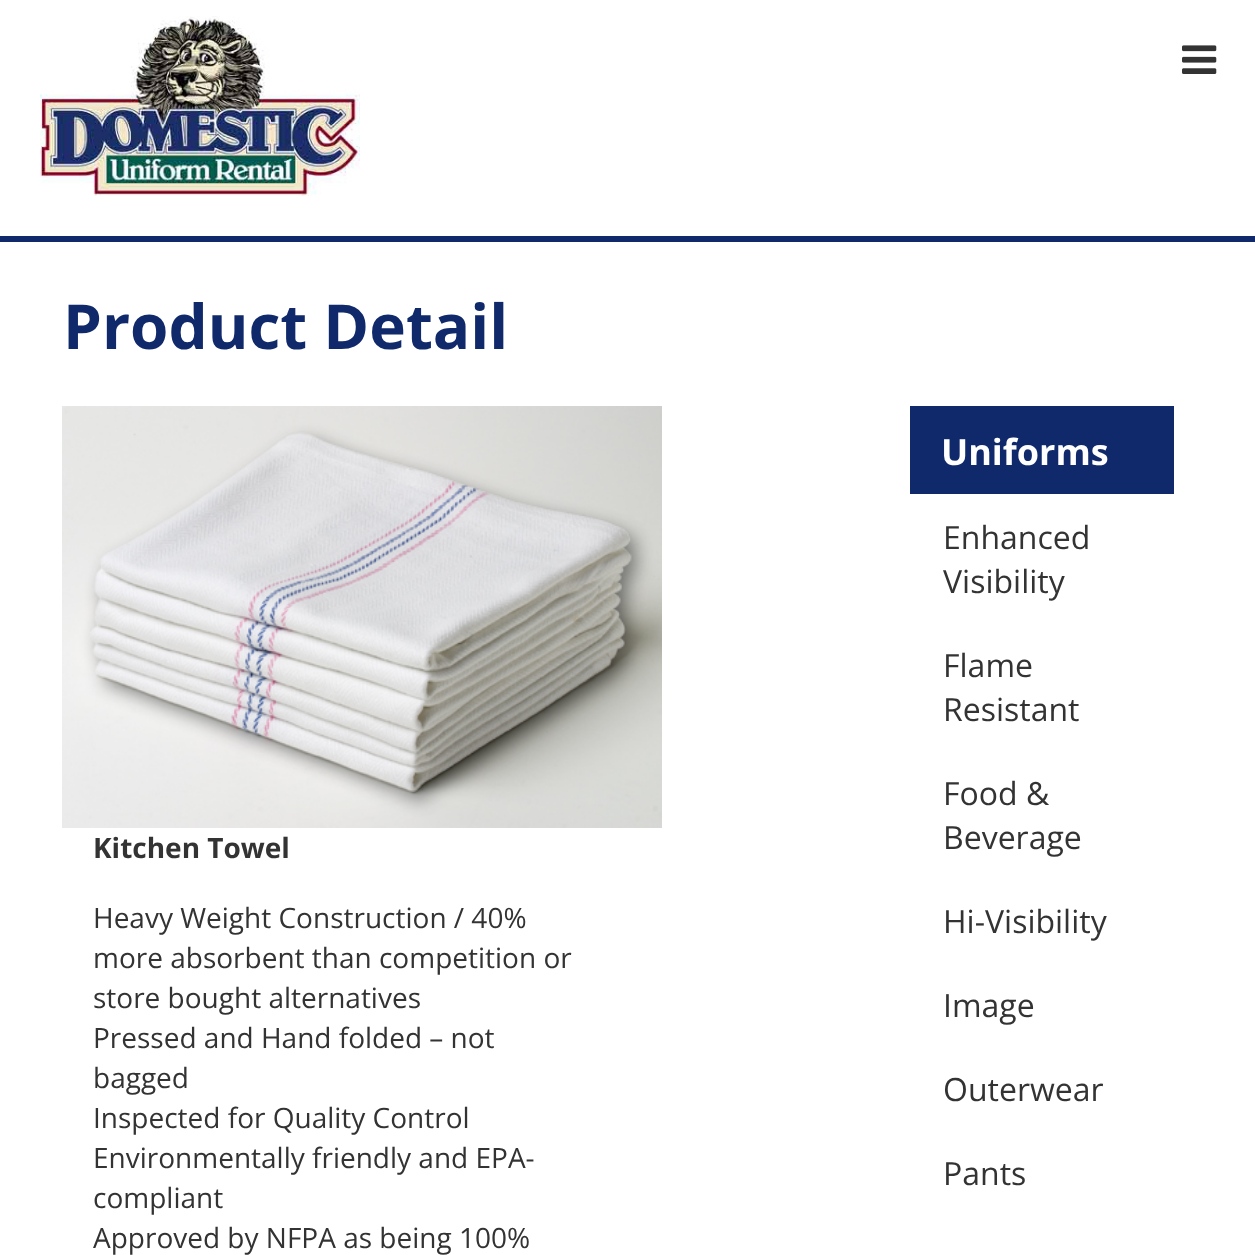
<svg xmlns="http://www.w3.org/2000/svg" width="1255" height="1255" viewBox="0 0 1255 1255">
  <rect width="100%" height="100%" fill="#fff"/>
  <image x="40" y="16" width="320" height="180" href="img/1.png"/>
  <path d="M0 236h1255v6H0z" fill="#10296a"/>
  <image x="1182" y="45" width="35" height="29" href="img/2.png"/>
  <image x="62" y="406" width="600" height="422" href="img/3.png"/>
  <path d="M910 406h264v88H910z" fill="#10296a"/>
  <text x="63" y="349" font-family="Open Sans" font-size="62" font-weight="bold" fill="#10296a">Product Detail</text>
  <text x="93" y="858" font-family="Open Sans" font-size="28" font-weight="bold" fill="#333">Kitchen Towel</text>
  <g font-family="Open Sans" font-size="28" fill="#333">
    <text x="93" y="928">Heavy Weight Construction / 40%</text>
    <text x="93" y="968">more absorbent than competition or</text>
    <text x="93" y="1008">store bought alternatives</text>
    <text x="93" y="1048">Pressed and Hand folded – not</text>
    <text x="93" y="1088">bagged</text>
    <text x="93" y="1128">Inspected for Quality Control</text>
    <text x="93" y="1168">Environmentally friendly and EPA-</text>
    <text x="93" y="1208">compliant</text>
    <text x="93" y="1248">Approved by NFPA as being 100%</text>
  </g>
  <text x="941" y="465" font-family="Open Sans" font-size="36" font-weight="bold" fill="#fff">Uniforms</text>
  <g font-family="Open Sans" font-size="32" fill="#333">
    <text x="943" y="549">Enhanced</text>
    <text x="943" y="593">Visibility</text>
    <text x="943" y="677">Flame</text>
    <text x="943" y="721">Resistant</text>
    <text x="943" y="805">Food &amp;</text>
    <text x="943" y="849">Beverage</text>
    <text x="943" y="933">Hi-Visibility</text>
    <text x="943" y="1017">Image</text>
    <text x="943" y="1101">Outerwear</text>
    <text x="943" y="1185">Pants</text>
  </g>
</svg>
